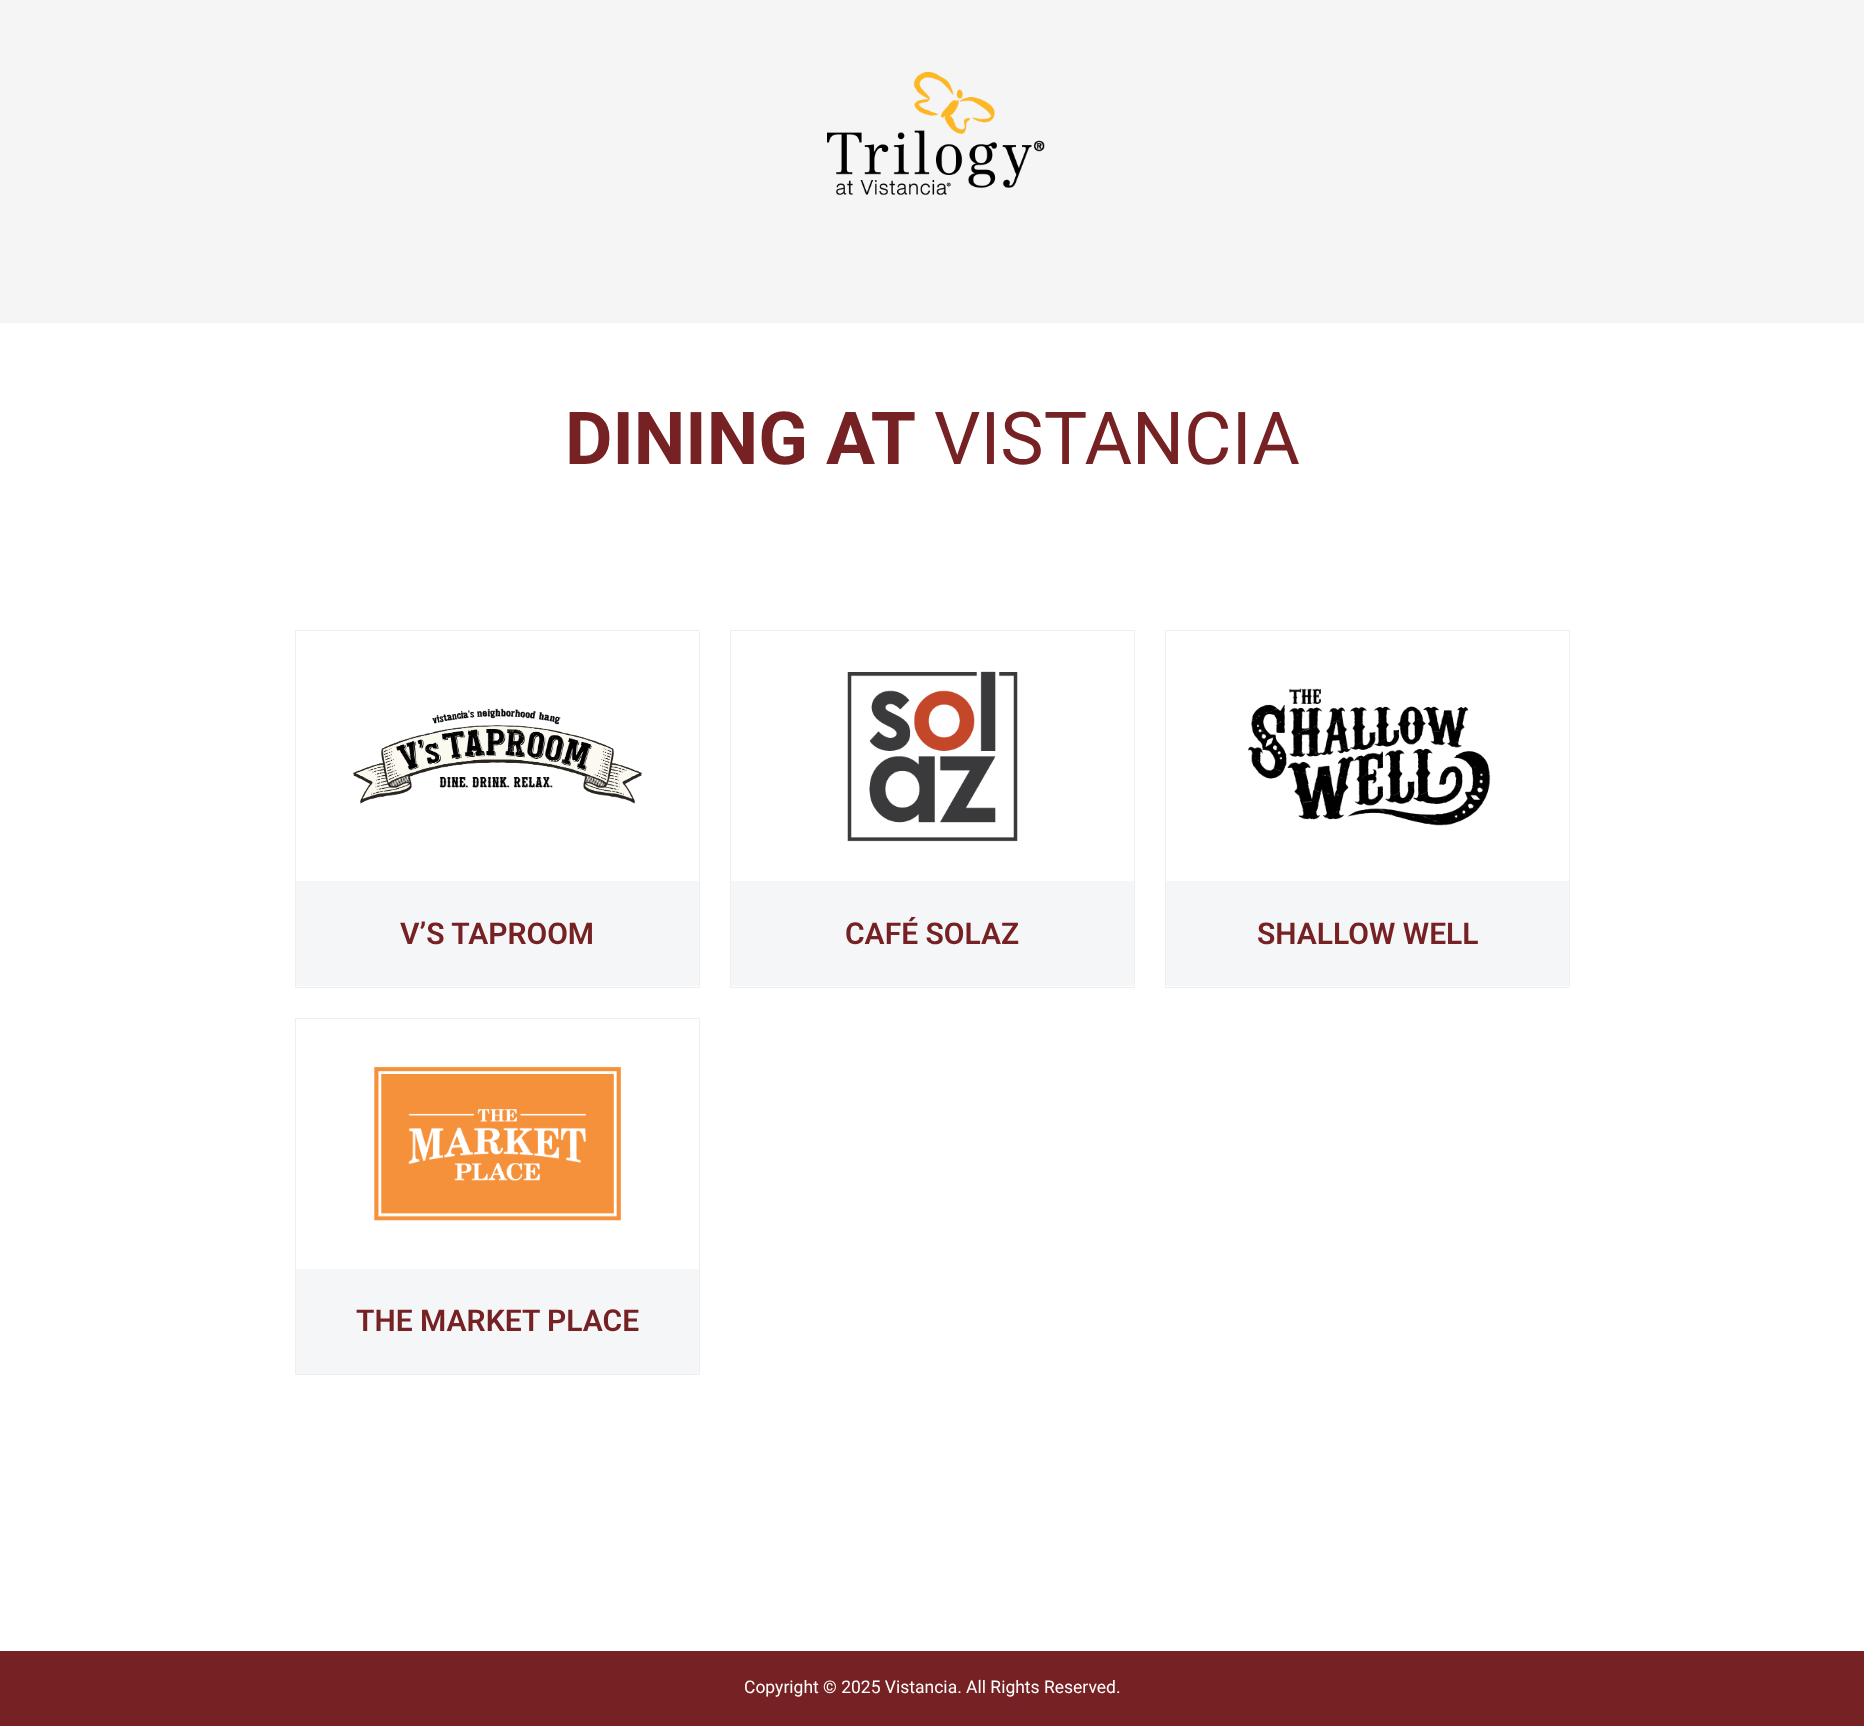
<svg xmlns="http://www.w3.org/2000/svg" width="1864" height="1726" viewBox="0 0 1864 1726">
  <rect width="100%" height="100%" fill="#fff"/>
  <path d="M0 0h1864v323H0z" fill="#f5f5f5"/>
  <image x="827" y="71" width="218" height="125" href="img/1.png"/>
  <path d="M295.5 630.5h404v357H295.5z" fill="none" stroke="#eee"/>
  <image x="353" y="708" width="289" height="96" href="img/2.png"/>
  <path d="M296 881H699V983.5C699 985 698 986 696.5 986H298.5C297 986 296 985 296 983.5Z" fill="#f5f6f7"/>
  <path d="M730.5 630.5h404v357H730.5z" fill="none" stroke="#eee"/>
  <image x="847" y="671" width="171" height="171" href="img/3.png"/>
  <path d="M731 881H1134V983.5C1134 985 1133 986 1131.5 986H733.5C732 986 731 985 731 983.5Z" fill="#f5f6f7"/>
  <path d="M1165.5 630.5h404v357H1165.5z" fill="none" stroke="#eee"/>
  <image x="1247" y="688" width="244" height="138" href="img/4.png"/>
  <path d="M1166 881H1569V983.5C1569 985 1568 986 1566.5 986H1168.5C1167 986 1166 985 1166 983.5Z" fill="#f5f6f7"/>
  <path d="M295.5 1018.5h404v356H295.5z" fill="none" stroke="#eee"/>
  <image x="374" y="1066" width="247" height="155" href="img/5.png"/>
  <path d="M296 1269H699V1371.5C699 1373 698 1374 696.5 1374H298.5C297 1374 296 1373 296 1371.5Z" fill="#f5f6f7"/>
  <path d="M0 1651h1864v75H0z" fill="#762123"/>
  <text x="565" y="464" font-family="Roboto" font-size="73" font-weight="bold" fill="#762123">DINING AT</text>
  <text x="934" y="464" font-family="Roboto" font-size="73" fill="#762123">VISTANCIA</text>
  <g font-family="Roboto" font-size="30" font-weight="600" fill="#762123">
    <text x="400" y="944">V’S TAPROOM</text>
    <text x="845" y="944">CAFÉ SOLAZ</text>
    <text x="1257" y="944">SHALLOW WELL</text>
    <text x="356" y="1331">THE MARKET PLACE</text>
  </g>
  <text x="744" y="1693" font-family="Roboto" font-size="17.5" fill="#fff">Copyright © 2025 Vistancia. All Rights Reserved.</text>
</svg>
